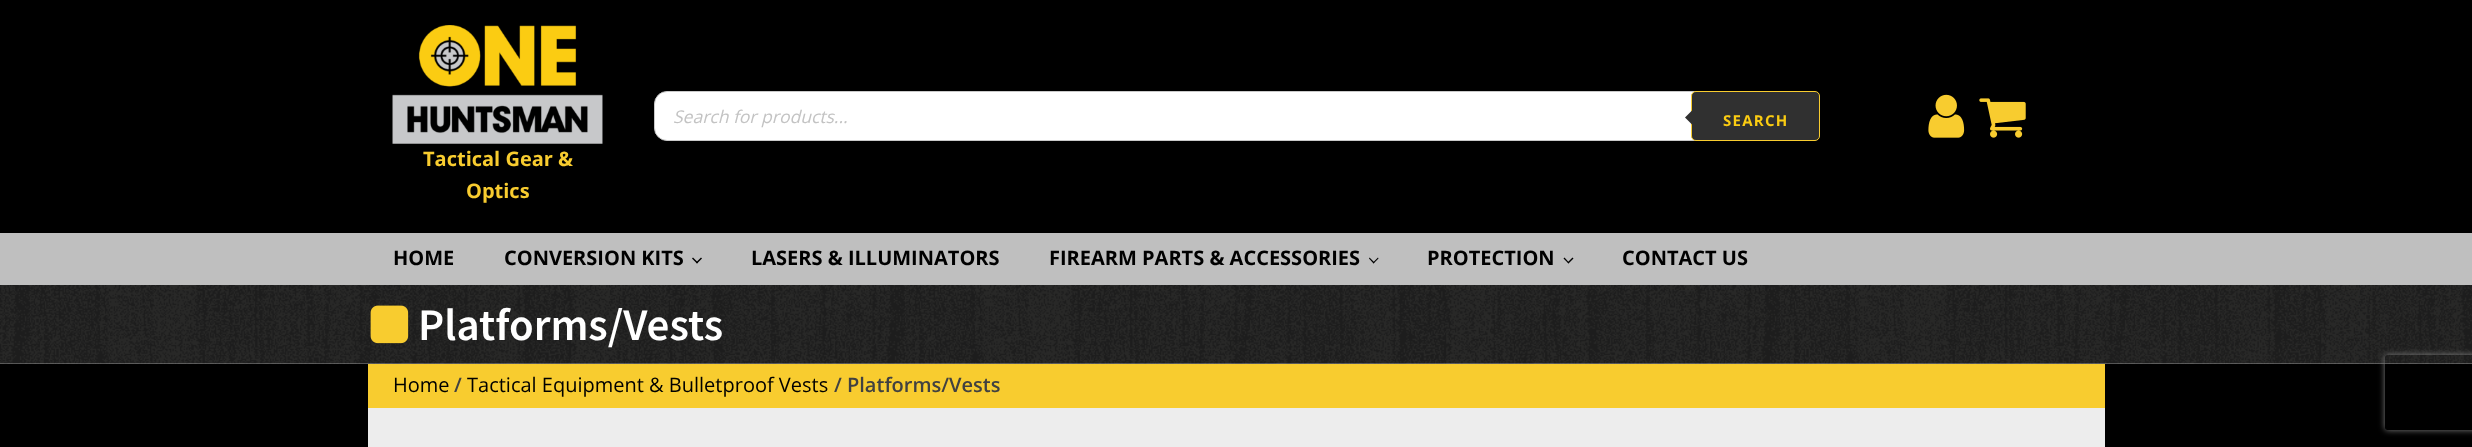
<svg xmlns="http://www.w3.org/2000/svg" width="2472" height="447" viewBox="0 0 2472 447">
  <defs>
    <clipPath id="clip1"><path d="M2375 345H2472V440H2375ZM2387.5 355H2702.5C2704 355 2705 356 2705 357.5V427.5C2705 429 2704 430 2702.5 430H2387.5C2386 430 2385 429 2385 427.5V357.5C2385 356 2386 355 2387.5 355Z" clip-rule="evenodd"/></clipPath>
  </defs>
  <rect width="100%" height="100%" fill="#fff"/>
  <path d="M0 0h2472v233H0z" fill="#000"/>
  <rect x="654.5" y="91.5" width="1165" height="49" rx="12.5" fill="#fff" stroke="#c9c9c9"/>
  <rect x="1691.5" y="91.5" width="128" height="49" rx="4.5" fill="#303030" stroke="#f8cc2f"/>
  <path d="M1695 107.5V127.5L1685 117.5Z" fill="#303030"/>
  <image x="1928" y="94" width="37" height="44" href="img/1.png"/>
  <image x="1979" y="98" width="47" height="40" href="img/2.png"/>
  <image x="392" y="25" width="211" height="119" href="img/3.png"/>
  <path d="M0 233h2472v52H0z" fill="#bfbfbf"/>
  <path d="M702 258.5L697 263.5L696 262.5L701 257.5Z" fill="#000"/>
  <path d="M698 262.5L697 263.5L692 258.5L693 257.5Z" fill="#000"/>
  <path d="M1378.5 258.5L1373.5 263.5L1373 262.5L1378 257.5Z" fill="#000"/>
  <path d="M1374.5 262.5L1373.5 263.5L1369 258.5L1369.5 257.5Z" fill="#000"/>
  <path d="M1573.5 258.5L1568.5 263.5L1567.5 262.5L1572.5 257.5Z" fill="#000"/>
  <path d="M1569 262.5L1568.5 263.5L1563.5 258.5L1564.5 257.5Z" fill="#000"/>
  <image x="0" y="285" width="2472" height="79" href="img/4.png"/>
  <image x="370" y="305" width="39" height="39" href="img/5.png"/>
  <path d="M0 364h2472v83H0z" fill="#000"/>
  <path d="M368 364h1737v44H368z" fill="#f8cc2f"/>
  <path d="M368 408h1737v39H368z" fill="#ededed"/>
  <g clip-path="url(#clip1)">
    <rect x="2385" y="355" width="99" height="75" rx="2.5" fill="#808080" filter="blur(3px)"/>
  </g>
  <text x="673" y="123" font-family="Open Sans" font-size="17.5" font-style="italic" fill="#c3c3c3">Search for products...</text>
  <text x="1723" y="126" font-family="Open Sans" font-size="15" font-weight="bold" letter-spacing="1.25" fill="#fbcc12">SEARCH</text>
  <g font-family="Open Sans" font-size="20" font-weight="bold" fill="#f8cc2f">
    <text x="423" y="166">Tactical Gear &amp;</text>
    <text x="466" y="198">Optics</text>
  </g>
  <g font-family="Open Sans" font-size="20" font-weight="bold" fill="#000">
    <text x="393" y="265">HOME</text>
    <text x="504" y="265">CONVERSION KITS</text>
    <text x="751" y="265">LASERS &amp; ILLUMINATORS</text>
    <text x="1049" y="265">FIREARM PARTS &amp; ACCESSORIES</text>
    <text x="1427" y="265">PROTECTION</text>
    <text x="1622" y="265">CONTACT US</text>
  </g>
  <text x="418" y="340" font-family="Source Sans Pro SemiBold" font-size="45" font-weight="600" fill="#fff">Platforms/Vests</text>
  <text x="393" y="392" font-family="Open Sans" font-size="20" fill="#000">Home</text>
  <text x="454" y="392" font-family="Open Sans" font-size="20" font-weight="600" fill="#414141">/</text>
  <text x="467" y="392" font-family="Open Sans" font-size="20" fill="#000">Tactical Equipment &amp; Bulletproof Vests</text>
  <text x="834" y="392" font-family="Open Sans" font-size="20" font-weight="600" fill="#414141">/ Platforms/Vests</text>
</svg>
